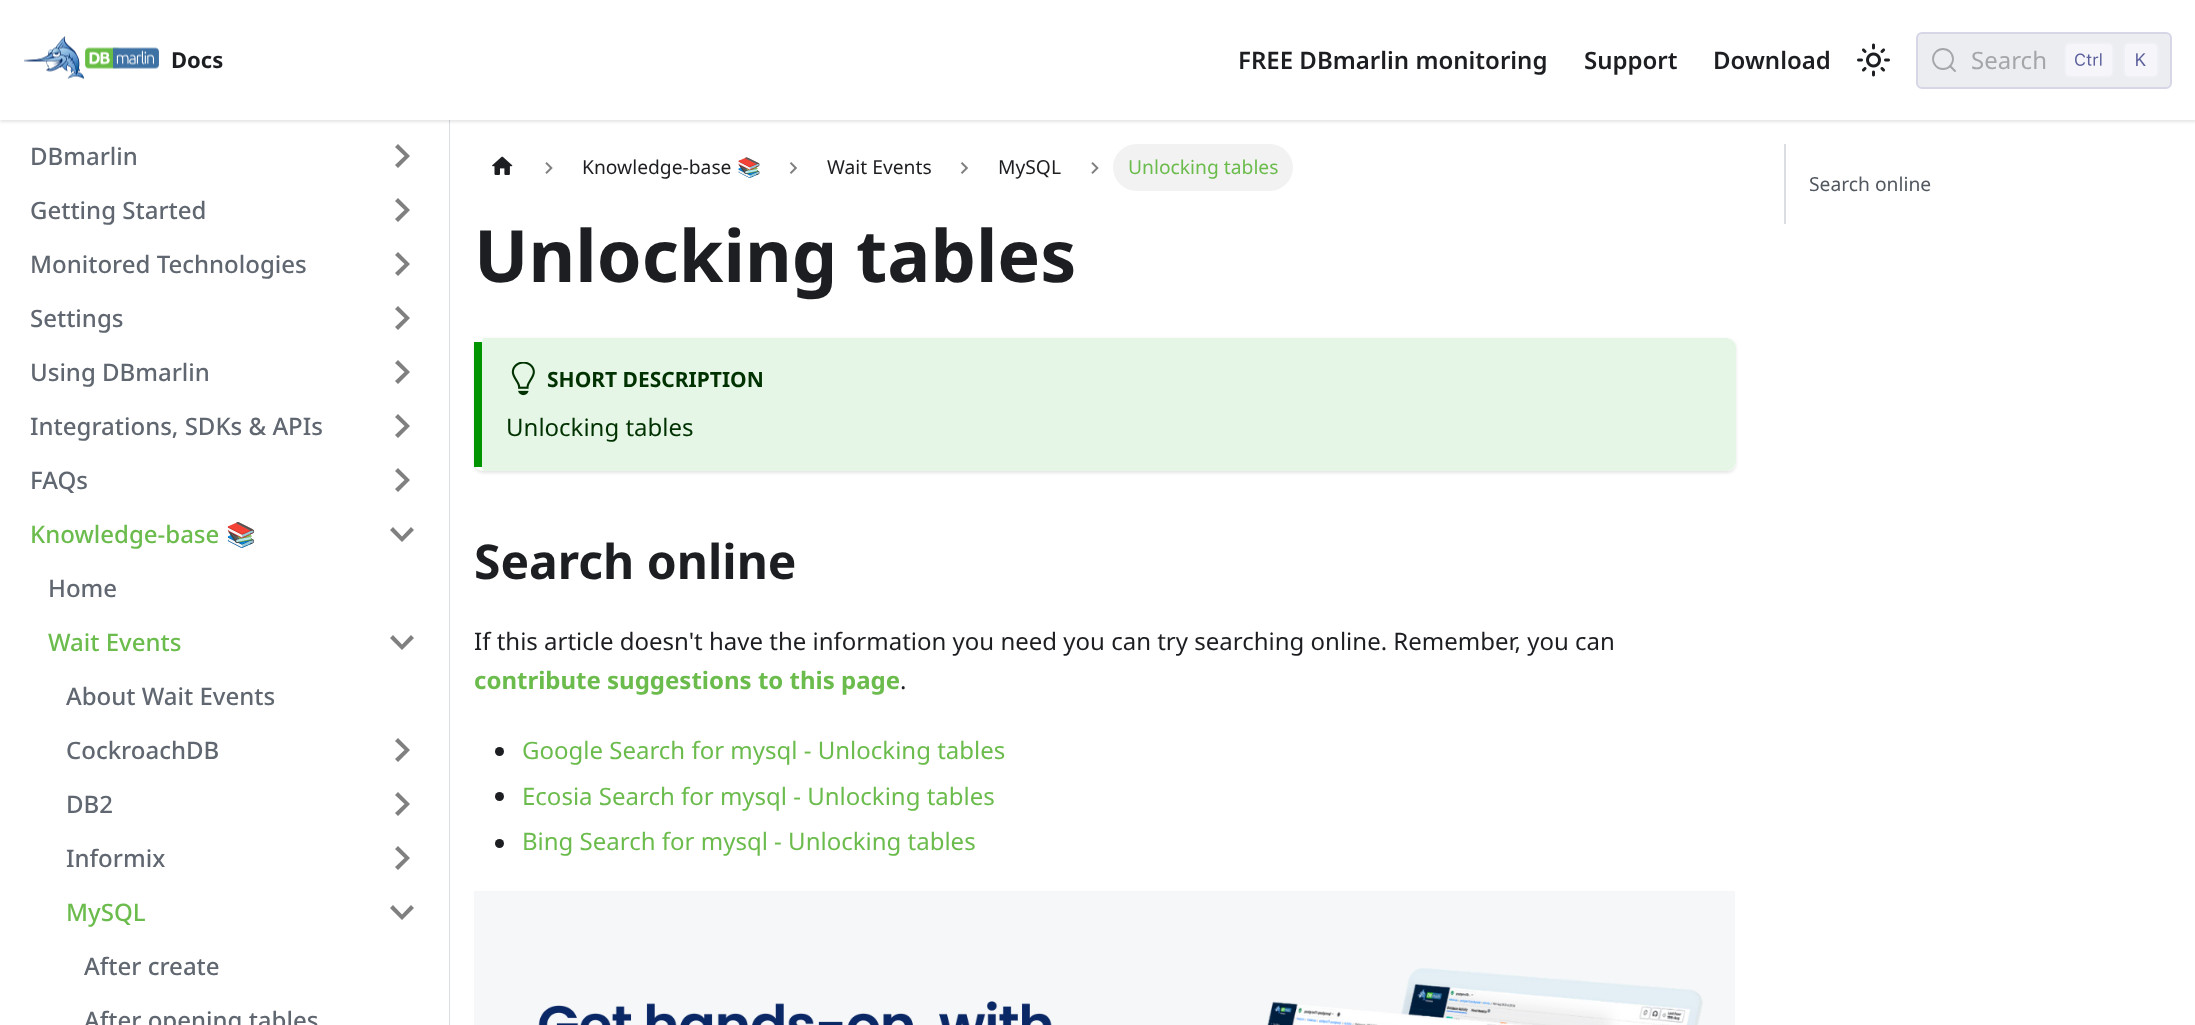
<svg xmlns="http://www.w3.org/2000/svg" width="2195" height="1025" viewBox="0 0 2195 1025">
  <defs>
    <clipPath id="clip1"><path d="M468 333H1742V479H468ZM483 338H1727C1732 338 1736 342 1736 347V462C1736 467 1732 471 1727 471H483C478 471 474 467 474 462V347C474 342 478 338 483 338Z" clip-rule="evenodd"/></clipPath>
  </defs>
  <rect width="100%" height="100%" fill="#fff"/>
  <path d="M449 120h1v905H449z" fill="#dadde1"/>
  <path d="M0 2h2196v120H0z" fill="#0000001a" filter="blur(1.5px)"/>
  <path d="M0 0h2195v120H0z" fill="#fff"/>
  <image x="24" y="36" width="135" height="44" href="img/1.png"/>
  <image x="1857" y="43" width="33" height="34" href="img/2.png"/>
  <rect x="1917" y="33" width="254" height="55" rx="5" fill="#ebedf0" stroke="#d6d6e7" stroke-width="2"/>
  <circle cx="1943" cy="59" r="10" fill="none" stroke="#a4a6a8" stroke-width="1.8"/>
  <path d="M1955 71L1950 66" fill="none" stroke="#a4a6a8" stroke-width="2" stroke-linecap="round" stroke-linejoin="round"/>
  <rect x="2065" y="43" width="48" height="34" rx="5" fill="#f5f5fa" stroke="#efeff6" stroke-width="2"/>
  <image x="2075" y="53" width="27" height="13" href="img/3.png"/>
  <rect x="2124" y="43" width="34" height="34" rx="5" fill="#f5f5fa" stroke="#efeff6" stroke-width="2"/>
  <image x="2136" y="53" width="10" height="13" href="img/4.png"/>
  <path d="M395 147L404.5 156L395 165L398 168L410 156L398 144Z" fill="#808080"/>
  <path d="M395 201L404.5 210L395 219L398 222L410 210L398 198Z" fill="#808080"/>
  <path d="M395 255L404.5 264L395 273L398 276L410 264L398 252Z" fill="#808080"/>
  <path d="M395 309L404.5 318L395 327L398 330L410 318L398 306Z" fill="#808080"/>
  <path d="M395 363L404.5 372L395 381L398 384L410 372L398 360Z" fill="#808080"/>
  <path d="M395 417L404.5 426L395 435L398 438L410 426L398 414Z" fill="#808080"/>
  <path d="M395 471L404.5 480L395 489L398 492L410 480L398 468Z" fill="#808080"/>
  <path d="M411 527L402 536.5L393 527L390 530L402 542L414 530Z" fill="#808080"/>
  <path d="M411 635L402 644.5L393 635L390 638L402 650L414 638Z" fill="#808080"/>
  <path d="M395 741L404.5 750L395 759L398 762L410 750L398 738Z" fill="#808080"/>
  <path d="M395 795L404.5 804L395 813L398 816L410 804L398 792Z" fill="#808080"/>
  <path d="M395 849L404.5 858L395 867L398 870L410 858L398 846Z" fill="#808080"/>
  <path d="M411 905L402 914.5L393 905L390 908L402 920L414 908Z" fill="#808080"/>
  <image x="492" y="156" width="21" height="19" href="img/5.png"/>
  <image x="545" y="162" width="8" height="12" href="img/6.png"/>
  <image x="789" y="162" width="8" height="12" href="img/7.png"/>
  <image x="960" y="162" width="8" height="12" href="img/7.png"/>
  <image x="1091" y="162" width="8" height="12" href="img/6.png"/>
  <rect x="1113" y="144" width="180" height="47" rx="23.5" fill="#f2f2f2"/>
  <g clip-path="url(#clip1)">
    <rect x="474" y="339" width="1262" height="134" rx="9" fill="#0000001a" filter="blur(1.5px)"/>
  </g>
  <path d="M484 338H1726C1731 338 1736 342 1736 347V461C1736 467 1731 471 1726 471H484C482 471 482 467 482 461V347C482 342 482 338 484 338Z" fill="#e6f6e6"/>
  <path d="M474 342h8v125H474z" fill="#009400"/>
  <image x="511" y="362" width="24" height="34" href="img/8.png"/>
  <circle cx="499.5" cy="751.5" r="4.5" fill="#1c1e21"/>
  <circle cx="499.5" cy="796.5" r="4.5" fill="#1c1e21"/>
  <circle cx="499.5" cy="843.5" r="4.5" fill="#1c1e21"/>
  <image x="474" y="891" width="1261" height="134" href="img/9.png"/>
  <path d="M1784 144h2v80H1784z" fill="#dadde1"/>
  <text x="171" y="68" font-family="Noto Sans" font-size="22" font-weight="bold" fill="#1c1e21">Docs</text>
  <g font-family="Noto Sans" font-size="24" font-weight="600" fill="#1c1e21">
    <text x="1238" y="69">FREE DBmarlin monitoring</text>
    <text x="1584" y="69">Support</text>
    <text x="1713" y="69">Download</text>
  </g>
  <text x="1971" y="69" font-family="Noto Sans" font-size="24" fill="#a4a6a8">Search</text>
  <g font-family="Noto Sans" font-size="24" font-weight="500" fill="#606770">
    <text x="30" y="165">DBmarlin</text>
    <text x="30" y="219">Getting Started</text>
    <text x="30" y="273">Monitored Technologies</text>
    <text x="30" y="327">Settings</text>
    <text x="30" y="381">Using DBmarlin</text>
    <text x="30" y="435">Integrations, SDKs &amp; APIs</text>
    <text x="30" y="489">FAQs</text>
  </g>
  <text x="30" y="543" font-family="Noto Sans" font-size="24" font-weight="500" fill="#6bbc4d">Knowledge-base</text>
  <text x="226" y="543" font-family="Noto Color Emoji" font-size="24" fill="#6bbc4d">📚</text>
  <text x="48" y="597" font-family="Noto Sans" font-size="24" font-weight="500" fill="#606770">Home</text>
  <text x="48" y="651" font-family="Noto Sans" font-size="24" font-weight="500" fill="#6bbc4d">Wait Events</text>
  <g font-family="Noto Sans" font-size="24" font-weight="500" fill="#606770">
    <text x="66" y="705">About Wait Events</text>
    <text x="66" y="759">CockroachDB</text>
    <text x="66" y="813">DB2</text>
    <text x="66" y="867">Informix</text>
  </g>
  <text x="66" y="921" font-family="Noto Sans" font-size="24" font-weight="500" fill="#6bbc4d">MySQL</text>
  <g font-family="Noto Sans" font-size="24" font-weight="500" fill="#606770">
    <text x="84" y="975">After create</text>
    <text x="84" y="1029">After opening tables</text>
  </g>
  <text x="582" y="174" font-family="Noto Sans" font-size="19.25" fill="#1c1e21">Knowledge-base</text>
  <text x="737" y="174" font-family="Noto Color Emoji" font-size="19.25" fill="#1c1e21">📚</text>
  <g font-family="Noto Sans" font-size="19.25" fill="#1c1e21">
    <text x="827" y="174">Wait Events</text>
    <text x="998" y="174">MySQL</text>
  </g>
  <text x="1128" y="174" font-family="Noto Sans" font-size="19.25" fill="#6bbc4d">Unlocking tables</text>
  <text x="474" y="282" font-family="Noto Sans" font-size="72" font-weight="bold" fill="#1c1e21">Unlocking tables</text>
  <text x="547" y="387" font-family="Noto Sans" font-size="21" font-weight="bold" fill="#003100">SHORT DESCRIPTION</text>
  <text x="506" y="436" font-family="Noto Sans" font-size="24" fill="#003100">Unlocking tables</text>
  <text x="474" y="579" font-family="Noto Sans" font-size="48" font-weight="bold" fill="#1c1e21">Search online</text>
  <text x="474" y="650" font-family="Noto Sans" font-size="24" fill="#1c1e21">If this article doesn't have the information you need you can try searching online. Remember, you can</text>
  <text x="474" y="689" font-family="Noto Sans" font-size="24" font-weight="bold" fill="#6bbc4d">contribute suggestions to this page</text>
  <text x="900" y="689" font-family="Noto Sans" font-size="24" fill="#1c1e21">.</text>
  <g font-family="Noto Sans" font-size="24" fill="#6bbc4d">
    <text x="522" y="759">Google Search for mysql - Unlocking tables</text>
    <text x="522" y="805">Ecosia Search for mysql - Unlocking tables</text>
    <text x="522" y="850">Bing Search for mysql - Unlocking tables</text>
  </g>
  <text x="1809" y="191" font-family="Noto Sans" font-size="19.25" fill="#525860">Search online</text>
</svg>
